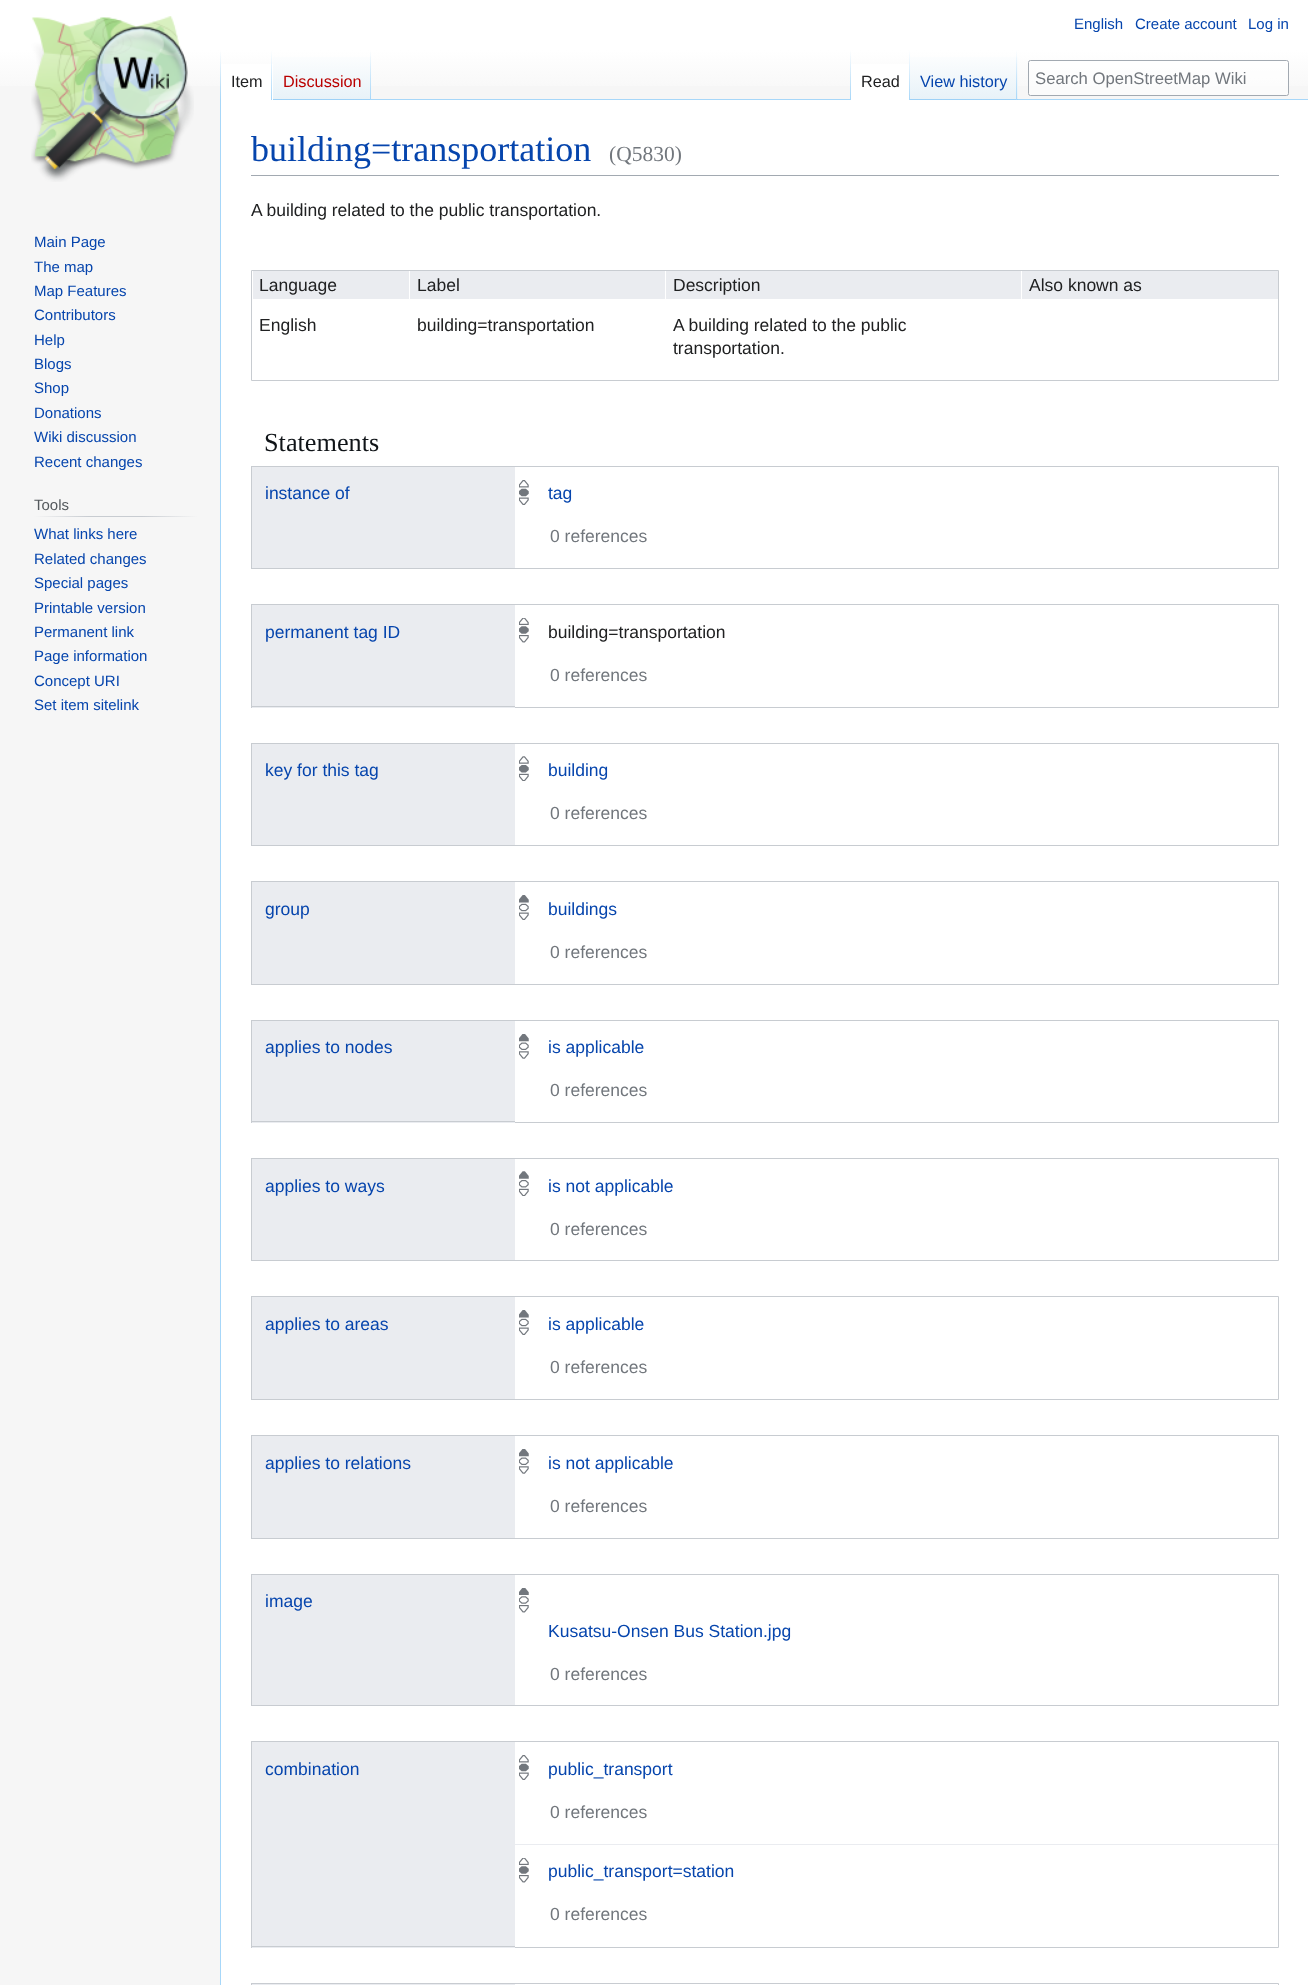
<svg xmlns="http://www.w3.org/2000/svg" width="1308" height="1985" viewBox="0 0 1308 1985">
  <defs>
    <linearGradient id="g1" gradientUnits="userSpaceOnUse" x1="654" y1="0" x2="654" y2="100"><stop offset="0.5" stop-color="#fff"/><stop offset="1" stop-color="#f6f6f6"/></linearGradient>
    <linearGradient id="g2" gradientUnits="userSpaceOnUse" x1="221" y1="50" x2="221" y2="100"><stop offset="0" stop-color="#a7d7f9" stop-opacity="0"/><stop offset="1" stop-color="#a7d7f9"/></linearGradient>
    <linearGradient id="g3" gradientUnits="userSpaceOnUse" x1="272" y1="50" x2="272" y2="100"><stop offset="0" stop-color="#fff"/><stop offset="1" stop-color="#a7d7f9"/></linearGradient>
    <linearGradient id="g4" gradientUnits="userSpaceOnUse" x1="322" y1="100" x2="322" y2="50"><stop offset="0" stop-color="#77c1f6"/><stop offset="0.03" stop-color="#e8f2f8"/><stop offset="1" stop-color="#fff"/></linearGradient>
    <linearGradient id="g5" gradientUnits="userSpaceOnUse" x1="371" y1="50" x2="371" y2="100"><stop offset="0" stop-color="#a7d7f9" stop-opacity="0"/><stop offset="1" stop-color="#a7d7f9"/></linearGradient>
    <linearGradient id="g6" gradientUnits="userSpaceOnUse" x1="851" y1="50" x2="851" y2="100"><stop offset="0" stop-color="#a7d7f9" stop-opacity="0"/><stop offset="1" stop-color="#a7d7f9"/></linearGradient>
    <linearGradient id="g7" gradientUnits="userSpaceOnUse" x1="909" y1="50" x2="909" y2="100"><stop offset="0" stop-color="#fff"/><stop offset="1" stop-color="#a7d7f9"/></linearGradient>
    <linearGradient id="g8" gradientUnits="userSpaceOnUse" x1="964" y1="100" x2="964" y2="50"><stop offset="0" stop-color="#77c1f6"/><stop offset="0.03" stop-color="#e8f2f8"/><stop offset="1" stop-color="#fff"/></linearGradient>
    <linearGradient id="g9" gradientUnits="userSpaceOnUse" x1="1017" y1="50" x2="1017" y2="100"><stop offset="0" stop-color="#a7d7f9" stop-opacity="0"/><stop offset="1" stop-color="#a7d7f9"/></linearGradient>
    <linearGradient id="g10" gradientUnits="userSpaceOnUse" x1="34" y1="517" x2="198" y2="517"><stop offset="0" stop-color="#f6f6f6"/><stop offset="0.33" stop-color="#c8ccd1"/><stop offset="0.66" stop-color="#c8ccd1"/><stop offset="1" stop-color="#f6f6f6"/></linearGradient>
  </defs>
  <rect width="100%" height="100%" fill="#f6f6f6"/>
  <path d="M0 0h1308v86H0z" fill="url(#g1)"/>
  <path d="M220 99h1v1886H220z" fill="#a7d7f9"/>
  <path d="M220 50h1v50H220z" fill="url(#g2)"/>
  <path d="M221 64h52v36H221z" fill="#fff"/>
  <path d="M271 50h1v50H271z" fill="url(#g3)"/>
  <path d="M273 57h98v43H273z" fill="url(#g4)"/>
  <path d="M370 50h1v50H370z" fill="url(#g5)"/>
  <path d="M371 99h937v1H371z" fill="#a7d7f9"/>
  <path d="M850 50h1v50H850z" fill="url(#g6)"/>
  <path d="M851 64h58v36H851z" fill="#fff"/>
  <path d="M909 50h1v50H909z" fill="url(#g7)"/>
  <path d="M910 57h108v43H910z" fill="url(#g8)"/>
  <path d="M1016 50h1v50H1016z" fill="url(#g9)"/>
  <rect x="1028.5" y="60.5" width="260" height="35" rx="2" fill="#ffffff80" stroke="#a2a9b1"/>
  <image x="31" y="16" width="163" height="166" href="img/1.png"/>
  <path d="M34 516h164v1H34z" fill="url(#g10)"/>
  <path d="M221 100h1087v1885H221z" fill="#fff"/>
  <path d="M251 175h1028v1H251z" fill="#a2a9b1"/>
  <path d="M251.5 270.5h1027v110H251.5z" fill="none" stroke="#c8ccd1"/>
  <path d="M253 271h156v28H253z" fill="#eaecf0"/>
  <path d="M410 271h255v28H410z" fill="#eaecf0"/>
  <path d="M666 271h612v28H666z" fill="#eaecf0"/>
  <path d="M1021 271h1v28H1021z" fill="#fff"/>
  <path d="M514.5 466.5h764v102H514.5z" fill="none" stroke="#c8ccd1"/>
  <path d="M252 467h263v101H252z" fill="#eaecf0"/>
  <path d="M251 466h264v1H251z" fill="#c8ccd1"/>
  <path d="M251 568h264v1H251z" fill="#c8ccd1"/>
  <path d="M251 466h1v103H251z" fill="#c8ccd1"/>
  <image x="519" y="480" width="10" height="25" href="img/2.png"/>
  <path d="M514.5 604.5h764v103H514.5z" fill="none" stroke="#c8ccd1"/>
  <path d="M252 605h263v103H252z" fill="#eaecf0"/>
  <path d="M251 604h264v1H251z" fill="#c8ccd1"/>
  <path d="M251 706h264v1H251z" fill="#c8ccd1"/>
  <path d="M251 604h1v104H251z" fill="#c8ccd1"/>
  <image x="519" y="618" width="10" height="25" href="img/3.png"/>
  <path d="M514.5 743.5h764v102H514.5z" fill="none" stroke="#c8ccd1"/>
  <path d="M252 744h263v101H252z" fill="#eaecf0"/>
  <path d="M251 743h264v1H251z" fill="#c8ccd1"/>
  <path d="M251 845h264v1H251z" fill="#c8ccd1"/>
  <path d="M251 743h1v103H251z" fill="#c8ccd1"/>
  <image x="519" y="756" width="10" height="25" href="img/4.png"/>
  <path d="M514.5 881.5h764v103H514.5z" fill="none" stroke="#c8ccd1"/>
  <path d="M252 882h263v102H252z" fill="#eaecf0"/>
  <path d="M251 881h264v1H251z" fill="#c8ccd1"/>
  <path d="M251 984h264v1H251z" fill="#c8ccd1"/>
  <path d="M251 881h1v104H251z" fill="#c8ccd1"/>
  <image x="519" y="895" width="10" height="25" href="img/5.png"/>
  <path d="M514.5 1020.5h764v102H514.5z" fill="none" stroke="#c8ccd1"/>
  <path d="M252 1021h263v102H252z" fill="#eaecf0"/>
  <path d="M251 1020h264v1H251z" fill="#c8ccd1"/>
  <path d="M251 1121h264v1H251z" fill="#c8ccd1"/>
  <path d="M251 1020h1v103H251z" fill="#c8ccd1"/>
  <image x="519" y="1034" width="10" height="25" href="img/6.png"/>
  <path d="M514.5 1158.5h764v102H514.5z" fill="none" stroke="#c8ccd1"/>
  <path d="M252 1159h263v101H252z" fill="#eaecf0"/>
  <path d="M251 1158h264v1H251z" fill="#c8ccd1"/>
  <path d="M251 1260h264v1H251z" fill="#c8ccd1"/>
  <path d="M251 1158h1v103H251z" fill="#c8ccd1"/>
  <image x="519" y="1171" width="10" height="25" href="img/7.png"/>
  <path d="M514.5 1296.5h764v103H514.5z" fill="none" stroke="#c8ccd1"/>
  <path d="M252 1297h263v102H252z" fill="#eaecf0"/>
  <path d="M251 1296h264v1H251z" fill="#c8ccd1"/>
  <path d="M251 1399h264v1H251z" fill="#c8ccd1"/>
  <path d="M251 1296h1v104H251z" fill="#c8ccd1"/>
  <image x="519" y="1310" width="10" height="25" href="img/5.png"/>
  <path d="M514.5 1435.5h764v103H514.5z" fill="none" stroke="#c8ccd1"/>
  <path d="M252 1436h263v102H252z" fill="#eaecf0"/>
  <path d="M251 1435h264v1H251z" fill="#c8ccd1"/>
  <path d="M251 1538h264v1H251z" fill="#c8ccd1"/>
  <path d="M251 1435h1v104H251z" fill="#c8ccd1"/>
  <image x="519" y="1449" width="10" height="25" href="img/6.png"/>
  <path d="M514.5 1574.5h764v131H514.5z" fill="none" stroke="#c8ccd1"/>
  <path d="M252 1575h263v130H252z" fill="#eaecf0"/>
  <path d="M251 1574h264v1H251z" fill="#c8ccd1"/>
  <path d="M251 1705h264v1H251z" fill="#c8ccd1"/>
  <path d="M251 1574h1v132H251z" fill="#c8ccd1"/>
  <image x="519" y="1588" width="10" height="25" href="img/8.png"/>
  <path d="M514.5 1741.5h764v206H514.5z" fill="none" stroke="#c8ccd1"/>
  <path d="M252 1742h263v206H252z" fill="#eaecf0"/>
  <path d="M251 1741h264v1H251z" fill="#c8ccd1"/>
  <path d="M251 1946h264v1H251z" fill="#c8ccd1"/>
  <path d="M251 1741h1v207H251z" fill="#c8ccd1"/>
  <path d="M515 1844h763v1H515z" fill="#eaecf0"/>
  <image x="519" y="1755" width="10" height="25" href="img/2.png"/>
  <image x="519" y="1858" width="10" height="25" href="img/3.png"/>
  <path d="M514.5 1983.5h764v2H514.5z" fill="none" stroke="#c8ccd1"/>
  <path d="M251 1984h264v1H251z" fill="#eaecf0"/>
  <path d="M251 1983h264v1H251z" fill="#c8ccd1"/>
  <path d="M251 1983h1v2H251z" fill="#c8ccd1"/>
  <g font-family="Liberation Sans" font-size="15" fill="#0645ad">
    <text x="1074" y="29">English</text>
    <text x="1135" y="29">Create account</text>
    <text x="1248" y="29">Log in</text>
  </g>
  <text x="231" y="87" font-family="Liberation Sans" font-size="16.25" fill="#202122">Item</text>
  <text x="283" y="87" font-family="Liberation Sans" font-size="16.25" fill="#ba0000">Discussion</text>
  <text x="861" y="87" font-family="Liberation Sans" font-size="16.25" fill="#202122">Read</text>
  <text x="920" y="87" font-family="Liberation Sans" font-size="16.25" fill="#0645ad">View history</text>
  <text x="1035" y="84" font-family="Liberation Sans" font-size="16.7" fill="#72777d">Search OpenStreetMap Wiki</text>
  <g font-family="Liberation Sans" font-size="15" fill="#0645ad">
    <text x="34" y="247">Main Page</text>
    <text x="34" y="272">The map</text>
    <text x="34" y="296">Map Features</text>
    <text x="34" y="320">Contributors</text>
    <text x="34" y="345">Help</text>
    <text x="34" y="369">Blogs</text>
    <text x="34" y="393">Shop</text>
    <text x="34" y="418">Donations</text>
    <text x="34" y="442">Wiki discussion</text>
    <text x="34" y="467">Recent changes</text>
  </g>
  <text x="34" y="510" font-family="Liberation Sans" font-size="15" fill="#54595d">Tools</text>
  <g font-family="Liberation Sans" font-size="15" fill="#0645ad">
    <text x="34" y="539">What links here</text>
    <text x="34" y="564">Related changes</text>
    <text x="34" y="588">Special pages</text>
    <text x="34" y="613">Printable version</text>
    <text x="34" y="637">Permanent link</text>
    <text x="34" y="661">Page information</text>
    <text x="34" y="686">Concept URI</text>
    <text x="34" y="710">Set item sitelink</text>
  </g>
  <text x="251" y="161" font-family="Liberation Serif" font-size="36" fill="#0645ad">building=transportation</text>
  <text x="609" y="161" font-family="Liberation Serif" font-size="21.5" fill="#72777d">(Q5830)</text>
  <g font-family="Liberation Sans" font-size="17.5" fill="#202122">
    <text x="251" y="216">A building related to the public transportation.</text>
    <text x="259" y="291">Language</text>
    <text x="417" y="291">Label</text>
    <text x="673" y="291">Description</text>
    <text x="1029" y="291">Also known as</text>
    <text x="259" y="331">English</text>
    <text x="417" y="331">building=transportation</text>
    <text x="673" y="331">A building related to the public</text>
    <text x="673" y="354">transportation.</text>
  </g>
  <text x="264" y="451" font-family="Liberation Serif" font-size="26.25" fill="#101418">Statements</text>
  <g font-family="Liberation Sans" font-size="17.5" fill="#0645ad">
    <text x="265" y="499">instance of</text>
    <text x="548" y="499">tag</text>
  </g>
  <text x="550" y="542" font-family="Liberation Sans" font-size="17.5" fill="#72777d">0 references</text>
  <text x="265" y="638" font-family="Liberation Sans" font-size="17.5" fill="#0645ad">permanent tag ID</text>
  <text x="548" y="638" font-family="Liberation Sans" font-size="17.5" fill="#202122">building=transportation</text>
  <text x="550" y="681" font-family="Liberation Sans" font-size="17.5" fill="#72777d">0 references</text>
  <g font-family="Liberation Sans" font-size="17.5" fill="#0645ad">
    <text x="265" y="776">key for this tag</text>
    <text x="548" y="776">building</text>
  </g>
  <text x="550" y="819" font-family="Liberation Sans" font-size="17.5" fill="#72777d">0 references</text>
  <g font-family="Liberation Sans" font-size="17.5" fill="#0645ad">
    <text x="265" y="915">group</text>
    <text x="548" y="915">buildings</text>
  </g>
  <text x="550" y="958" font-family="Liberation Sans" font-size="17.5" fill="#72777d">0 references</text>
  <g font-family="Liberation Sans" font-size="17.5" fill="#0645ad">
    <text x="265" y="1053">applies to nodes</text>
    <text x="548" y="1053">is applicable</text>
  </g>
  <text x="550" y="1096" font-family="Liberation Sans" font-size="17.5" fill="#72777d">0 references</text>
  <g font-family="Liberation Sans" font-size="17.5" fill="#0645ad">
    <text x="265" y="1192">applies to ways</text>
    <text x="548" y="1192">is not applicable</text>
  </g>
  <text x="550" y="1235" font-family="Liberation Sans" font-size="17.5" fill="#72777d">0 references</text>
  <g font-family="Liberation Sans" font-size="17.5" fill="#0645ad">
    <text x="265" y="1330">applies to areas</text>
    <text x="548" y="1330">is applicable</text>
  </g>
  <text x="550" y="1373" font-family="Liberation Sans" font-size="17.5" fill="#72777d">0 references</text>
  <g font-family="Liberation Sans" font-size="17.5" fill="#0645ad">
    <text x="265" y="1469">applies to relations</text>
    <text x="548" y="1469">is not applicable</text>
  </g>
  <text x="550" y="1512" font-family="Liberation Sans" font-size="17.5" fill="#72777d">0 references</text>
  <g font-family="Liberation Sans" font-size="17.5" fill="#0645ad">
    <text x="265" y="1607">image</text>
    <text x="548" y="1637">Kusatsu-Onsen Bus Station.jpg</text>
  </g>
  <text x="550" y="1680" font-family="Liberation Sans" font-size="17.5" fill="#72777d">0 references</text>
  <g font-family="Liberation Sans" font-size="17.5" fill="#0645ad">
    <text x="265" y="1775">combination</text>
    <text x="548" y="1775">public_transport</text>
  </g>
  <text x="550" y="1818" font-family="Liberation Sans" font-size="17.5" fill="#72777d">0 references</text>
  <text x="548" y="1877" font-family="Liberation Sans" font-size="17.5" fill="#0645ad">public_transport=station</text>
  <text x="550" y="1920" font-family="Liberation Sans" font-size="17.5" fill="#72777d">0 references</text>
</svg>
